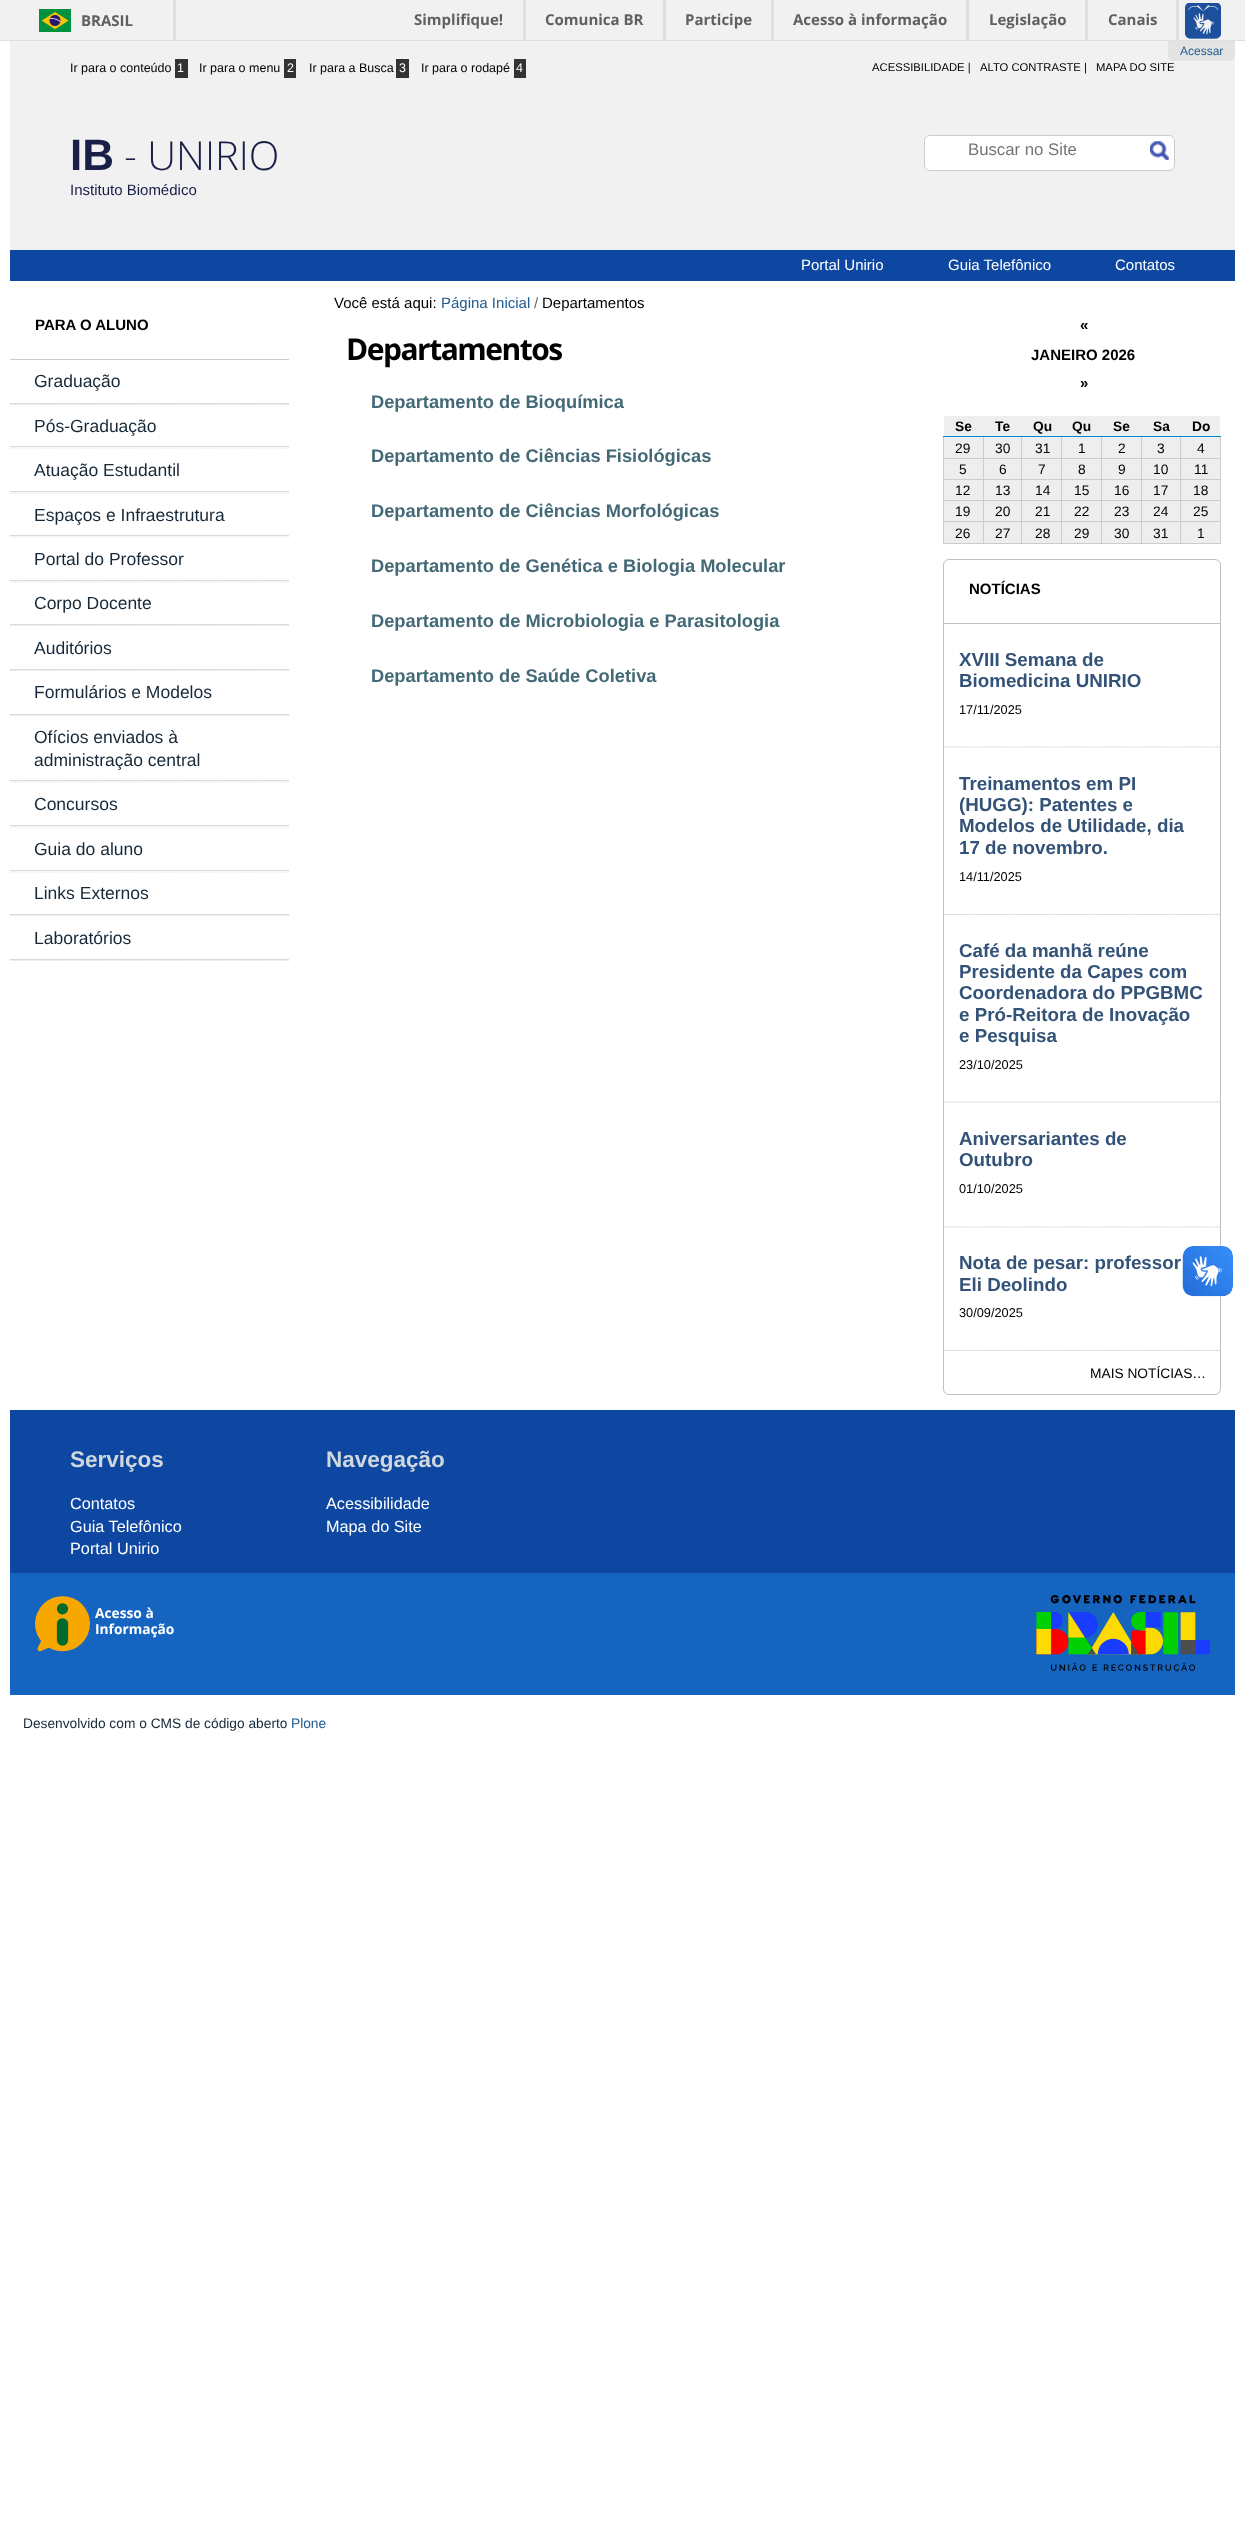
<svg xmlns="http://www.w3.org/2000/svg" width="1245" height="2542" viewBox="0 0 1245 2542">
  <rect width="100%" height="100%" fill="#fff"/>
  <path d="M0 0h1245v40H0z" fill="#f1f1f1"/>
  <path d="M0 40h1245v1H0z" fill="#dfdfdf"/>
  <path d="M173 0h3v40H173z" fill="#dfdfdf"/>
  <image x="39" y="9" width="32" height="23" href="img/1.png"/>
  <path d="M523 0h3v40H523z" fill="#dfdfdf"/>
  <path d="M663 0h3v40H663z" fill="#dfdfdf"/>
  <path d="M771 0h3v40H771z" fill="#dfdfdf"/>
  <path d="M966 0h3v40H966z" fill="#dfdfdf"/>
  <path d="M1085 0h3v40H1085z" fill="#dfdfdf"/>
  <path d="M1176 0h3v40H1176z" fill="#dfdfdf"/>
  <image x="1185" y="3" width="36" height="36" href="img/2.png"/>
  <path d="M10 41h1225v209H10z" fill="#f1f1f1"/>
  <path d="M1168 41H1235V55C1235 58.5 1232.5 61 1229 61H1174C1170.5 61 1168 58.5 1168 55Z" fill="#e3e3e3"/>
  <path d="M175 59h13v19H175z" fill="#333"/>
  <path d="M284 59h12v19H284z" fill="#333"/>
  <path d="M396 59h13v19H396z" fill="#333"/>
  <path d="M514 59h12v19H514z" fill="#333"/>
  <rect x="924.5" y="135.5" width="250" height="35" rx="5.5" fill="#fff" stroke="#ccc"/>
  <image x="1150" y="141" width="19" height="19" href="img/3.png"/>
  <path d="M10 250h1225v31H10z" fill="#0d47a1"/>
  <path d="M10 359h279v1H10z" fill="#ccc"/>
  <path d="M10 404.5H289" fill="none" stroke="#ddd" stroke-width="1.2" stroke-dasharray="1.25 1.25"/>
  <path d="M10 403h279v1H10z" fill="#d6dcd7"/>
  <path d="M10 448H289" fill="none" stroke="#ddd" stroke-width="1.2" stroke-dasharray="1.25 1.25"/>
  <path d="M10 446h279v1H10z" fill="#d6dcd7"/>
  <path d="M10 493H289" fill="none" stroke="#ddd" stroke-width="1.2" stroke-dasharray="1.25 1.25"/>
  <path d="M10 491h279v1H10z" fill="#d6dcd7"/>
  <path d="M10 537H289" fill="none" stroke="#ddd" stroke-width="1.2" stroke-dasharray="1.25 1.25"/>
  <path d="M10 535h279v1H10z" fill="#d6dcd7"/>
  <path d="M10 582H289" fill="none" stroke="#ddd" stroke-width="1.2" stroke-dasharray="1.25 1.25"/>
  <path d="M10 580h279v1H10z" fill="#d6dcd7"/>
  <path d="M10 625.5H289" fill="none" stroke="#ddd" stroke-width="1.2" stroke-dasharray="1.25 1.25"/>
  <path d="M10 624h279v1H10z" fill="#d6dcd7"/>
  <path d="M10 670.5H289" fill="none" stroke="#ddd" stroke-width="1.2" stroke-dasharray="1.25 1.25"/>
  <path d="M10 669h279v1H10z" fill="#d6dcd7"/>
  <path d="M10 715.5H289" fill="none" stroke="#ddd" stroke-width="1.2" stroke-dasharray="1.25 1.25"/>
  <path d="M10 714h279v1H10z" fill="#d6dcd7"/>
  <path d="M10 782H289" fill="none" stroke="#ddd" stroke-width="1.2" stroke-dasharray="1.25 1.25"/>
  <path d="M10 780h279v1H10z" fill="#d6dcd7"/>
  <path d="M10 827H289" fill="none" stroke="#ddd" stroke-width="1.2" stroke-dasharray="1.25 1.25"/>
  <path d="M10 825h279v1H10z" fill="#d6dcd7"/>
  <path d="M10 872H289" fill="none" stroke="#ddd" stroke-width="1.2" stroke-dasharray="1.25 1.25"/>
  <path d="M10 870h279v1H10z" fill="#d6dcd7"/>
  <path d="M10 915.5H289" fill="none" stroke="#ddd" stroke-width="1.2" stroke-dasharray="1.25 1.25"/>
  <path d="M10 914h279v1H10z" fill="#d6dcd7"/>
  <path d="M10 960.5H289" fill="none" stroke="#ddd" stroke-width="1.2" stroke-dasharray="1.25 1.25"/>
  <path d="M10 959h279v1H10z" fill="#d6dcd7"/>
  <path d="M944 416h276v22H944z" fill="#eee"/>
  <path d="M1180 458h41v1H1180z" fill="#ccc"/>
  <path d="M1180 479h41v1H1180z" fill="#ccc"/>
  <path d="M1180 500h41v1H1180z" fill="#ccc"/>
  <path d="M1142 501h38v42H1142z" fill="#eee"/>
  <path d="M1181 501h39v42H1181z" fill="#eee"/>
  <path d="M1180 521h41v1H1180z" fill="#ccc"/>
  <path d="M1220 521h1v23H1220z" fill="#ccc"/>
  <path d="M1180 543h41v1H1180z" fill="#ccc"/>
  <path d="M1180 521h1v23H1180z" fill="#ccc"/>
  <path d="M1141 521h40v1H1141z" fill="#ccc"/>
  <path d="M1180 500h1v23H1180z" fill="#ccc"/>
  <path d="M1141 500h40v1H1141z" fill="#ccc"/>
  <path d="M1180 479h1v22H1180z" fill="#ccc"/>
  <path d="M1141 479h40v1H1141z" fill="#ccc"/>
  <path d="M1180 458h1v22H1180z" fill="#ccc"/>
  <path d="M1141 458h40v1H1141z" fill="#ccc"/>
  <path d="M1102 501h39v42H1102z" fill="#eee"/>
  <path d="M1141 543h40v1H1141z" fill="#ccc"/>
  <path d="M1141 521h1v23H1141z" fill="#ccc"/>
  <path d="M1101 521h42v1H1101z" fill="#ccc"/>
  <path d="M1141 500h1v23H1141z" fill="#ccc"/>
  <path d="M1101 500h42v1H1101z" fill="#ccc"/>
  <path d="M1141 479h1v22H1141z" fill="#ccc"/>
  <path d="M1101 479h42v1H1101z" fill="#ccc"/>
  <path d="M1141 458h1v22H1141z" fill="#ccc"/>
  <path d="M1101 458h42v1H1101z" fill="#ccc"/>
  <path d="M984 501h117v22H984z" fill="#eee"/>
  <path d="M1101 543h42v1H1101z" fill="#ccc"/>
  <path d="M1101 521h1v23H1101z" fill="#ccc"/>
  <path d="M1061 521h42v1H1061z" fill="#ccc"/>
  <path d="M1101 500h1v23H1101z" fill="#ccc"/>
  <path d="M1061 500h42v1H1061z" fill="#ccc"/>
  <path d="M1101 479h1v22H1101z" fill="#ccc"/>
  <path d="M1061 479h42v1H1061z" fill="#ccc"/>
  <path d="M1101 458h1v22H1101z" fill="#ccc"/>
  <path d="M1061 458h42v1H1061z" fill="#ccc"/>
  <path d="M984 459h117v20H984z" fill="#eee"/>
  <path d="M984 480h117v20H984z" fill="#eee"/>
  <path d="M984 523h117v20H984z" fill="#eee"/>
  <path d="M1061 543h42v1H1061z" fill="#ccc"/>
  <path d="M1061 521h1v23H1061z" fill="#ccc"/>
  <path d="M1021 521h42v1H1021z" fill="#ccc"/>
  <path d="M1061 500h1v23H1061z" fill="#ccc"/>
  <path d="M1021 500h42v1H1021z" fill="#ccc"/>
  <path d="M1061 479h1v22H1061z" fill="#ccc"/>
  <path d="M1021 479h42v1H1021z" fill="#ccc"/>
  <path d="M1061 458h1v22H1061z" fill="#ccc"/>
  <path d="M1021 458h42v1H1021z" fill="#ccc"/>
  <path d="M1021 543h42v1H1021z" fill="#ccc"/>
  <path d="M1021 521h1v23H1021z" fill="#ccc"/>
  <path d="M983 521h40v1H983z" fill="#ccc"/>
  <path d="M1021 500h1v23H1021z" fill="#ccc"/>
  <path d="M983 500h40v1H983z" fill="#ccc"/>
  <path d="M1021 479h1v22H1021z" fill="#ccc"/>
  <path d="M983 479h40v1H983z" fill="#ccc"/>
  <path d="M1021 458h1v22H1021z" fill="#ccc"/>
  <path d="M983 458h40v1H983z" fill="#ccc"/>
  <path d="M944 501h39v42H944z" fill="#eee"/>
  <path d="M983 543h40v1H983z" fill="#ccc"/>
  <path d="M983 521h1v23H983z" fill="#ccc"/>
  <path d="M943 521h41v1H943z" fill="#ccc"/>
  <path d="M983 500h1v23H983z" fill="#ccc"/>
  <path d="M943 500h41v1H943z" fill="#ccc"/>
  <path d="M983 479h1v22H983z" fill="#ccc"/>
  <path d="M943 479h41v1H943z" fill="#ccc"/>
  <path d="M983 458h1v22H983z" fill="#ccc"/>
  <path d="M943 458h41v1H943z" fill="#ccc"/>
  <path d="M983 436h1v23H983z" fill="#ccc"/>
  <path d="M984 438h117v20H984z" fill="#eee"/>
  <path d="M1021 436h1v23H1021z" fill="#ccc"/>
  <path d="M1061 436h1v23H1061z" fill="#ccc"/>
  <path d="M1101 436h1v23H1101z" fill="#ccc"/>
  <path d="M1141 436h1v23H1141z" fill="#ccc"/>
  <path d="M1180 436h1v23H1180z" fill="#ccc"/>
  <path d="M943 543h41v1H943z" fill="#ccc"/>
  <path d="M943 521h1v23H943z" fill="#ccc"/>
  <path d="M943 500h1v23H943z" fill="#ccc"/>
  <path d="M943 479h1v22H943z" fill="#ccc"/>
  <path d="M943 436h1v44H943z" fill="#ccc"/>
  <path d="M1220 500h1v23H1220z" fill="#ccc"/>
  <path d="M1220 479h1v22H1220z" fill="#ccc"/>
  <path d="M1220 436h1v44H1220z" fill="#ccc"/>
  <path d="M943 436h278v1H943z" fill="#0288d1"/>
  <path d="M944 438h39v20H944z" fill="#eee"/>
  <path d="M1102 438h39v20H1102z" fill="#eee"/>
  <path d="M1142 438h38v20H1142z" fill="#eee"/>
  <path d="M1181 438h39v20H1181z" fill="#eee"/>
  <path d="M944 459h39v20H944z" fill="#eee"/>
  <path d="M1102 459h39v20H1102z" fill="#eee"/>
  <path d="M1142 459h38v20H1142z" fill="#eee"/>
  <path d="M1181 459h39v20H1181z" fill="#eee"/>
  <path d="M944 480h39v20H944z" fill="#eee"/>
  <path d="M1102 480h39v20H1102z" fill="#eee"/>
  <path d="M1142 480h38v20H1142z" fill="#eee"/>
  <path d="M1181 480h39v20H1181z" fill="#eee"/>
  <rect x="943.5" y="559.5" width="277" height="835" rx="5.5" fill="none" stroke="#c0c1c1"/>
  <path d="M944 623h276v1H944z" fill="#c0c1c1"/>
  <path d="M944 747H1220" fill="none" stroke="#c0c1c1" stroke-width="1.2" stroke-dasharray="1.25 1.25"/>
  <path d="M944 914.5H1220" fill="none" stroke="#c0c1c1" stroke-width="1.2" stroke-dasharray="1.25 1.25"/>
  <path d="M944 1102H1220" fill="none" stroke="#c0c1c1" stroke-width="1.2" stroke-dasharray="1.25 1.25"/>
  <path d="M944 1227H1220" fill="none" stroke="#c0c1c1" stroke-width="1.2" stroke-dasharray="1.25 1.25"/>
  <path d="M944 1350.5H1220" fill="none" stroke="#c0c1c1" stroke-width="1.2" stroke-dasharray="1.25 1.25"/>
  <path d="M10 1410h1225v163H10z" fill="#0d47a1"/>
  <path d="M10 1573h1225v122H10z" fill="#1565c0"/>
  <image x="35" y="1596" width="139" height="56" href="img/4.png"/>
  <image x="1036" y="1595" width="174" height="78" href="img/5.png"/>
  <image x="1182" y="1246" width="51" height="51" href="img/6.png"/>
  <image x="1183" y="1246" width="50" height="50" href="img/7.png"/>
  <g font-family="Open Sans" font-size="15" font-weight="bold" fill="#606060">
    <text x="81" y="26">BRASIL</text>
    <text x="414" y="25">Simplifique!</text>
    <text x="545" y="25">Comunica BR</text>
    <text x="685" y="25">Participe</text>
    <text x="793" y="25">Acesso à informação</text>
    <text x="989" y="25">Legislação</text>
    <text x="1108" y="25">Canais</text>
  </g>
  <text x="1180" y="55" font-family="Liberation Sans" font-size="12" fill="#205c90">Acessar</text>
  <text x="70" y="72" font-family="Liberation Sans" font-size="12.5" fill="#000">Ir para o conteúdo</text>
  <text x="177" y="72" font-family="Liberation Sans" font-size="12.5" fill="#fff">1</text>
  <text x="199" y="72" font-family="Liberation Sans" font-size="12.5" fill="#000">Ir para o menu</text>
  <text x="287" y="72" font-family="Liberation Sans" font-size="12.5" fill="#fff">2</text>
  <text x="309" y="72" font-family="Liberation Sans" font-size="12.5" fill="#000">Ir para a Busca</text>
  <text x="399" y="72" font-family="Liberation Sans" font-size="12.5" fill="#fff">3</text>
  <text x="421" y="72" font-family="Liberation Sans" font-size="12.5" fill="#000">Ir para o rodapé</text>
  <text x="516" y="72" font-family="Liberation Sans" font-size="12.5" fill="#fff">4</text>
  <g font-family="Liberation Sans" font-size="11.25" fill="#000">
    <text x="872" y="71">ACESSIBILIDADE |</text>
    <text x="980" y="71">ALTO CONTRASTE |</text>
    <text x="1096" y="71">MAPA DO SITE</text>
  </g>
  <text x="70" y="170" font-family="Liberation Sans" font-size="44" font-weight="bold" fill="#1a1f48">IB</text>
  <text x="124" y="170" font-family="Open Sans" font-size="40" font-weight="300" fill="#1a1f48">- UNIRIO</text>
  <text x="70" y="195" font-family="Liberation Sans" font-size="15" fill="#1a1f48">Instituto Biomédico</text>
  <text x="968" y="155" font-family="Liberation Sans" font-size="16.75" fill="#757575">Buscar no Site</text>
  <g font-family="Liberation Sans" font-size="15" fill="#fff">
    <text x="801" y="270">Portal Unirio</text>
    <text x="948" y="270">Guia Telefônico</text>
    <text x="1115" y="270">Contatos</text>
  </g>
  <text x="35" y="330" font-family="Liberation Sans" font-size="15" font-weight="bold" fill="#000">PARA O ALUNO</text>
  <g font-family="Liberation Sans" font-size="17.5" fill="#172938">
    <text x="34" y="387">Graduação</text>
    <text x="34" y="432">Pós-Graduação</text>
    <text x="34" y="476">Atuação Estudantil</text>
    <text x="34" y="521">Espaços e Infraestrutura</text>
    <text x="34" y="565">Portal do Professor</text>
    <text x="34" y="609">Corpo Docente</text>
    <text x="34" y="654">Auditórios</text>
    <text x="34" y="698">Formulários e Modelos</text>
    <text x="34" y="743">Ofícios enviados à</text>
    <text x="34" y="766">administração central</text>
    <text x="34" y="810">Concursos</text>
    <text x="34" y="855">Guia do aluno</text>
    <text x="34" y="899">Links Externos</text>
    <text x="34" y="944">Laboratórios</text>
  </g>
  <text x="334" y="308" font-family="Liberation Sans" font-size="15" fill="#000">Você está aqui:</text>
  <text x="441" y="308" font-family="Liberation Sans" font-size="15" fill="#205c90">Página Inicial</text>
  <text x="534" y="308" font-family="Liberation Sans" font-size="15" fill="#666">/</text>
  <text x="542" y="308" font-family="Liberation Sans" font-size="15" fill="#000">Departamentos</text>
  <text x="346" y="360" font-family="Open Sans" font-size="30" font-weight="bold" letter-spacing="-1.5" fill="#000">Departamentos</text>
  <g font-family="Liberation Sans" font-size="18.3" font-weight="bold" fill="#436976">
    <text x="371" y="408">Departamento de Bioquímica</text>
    <text x="371" y="462">Departamento de Ciências Fisiológicas</text>
    <text x="371" y="517">Departamento de Ciências Morfológicas</text>
    <text x="371" y="572">Departamento de Genética e Biologia Molecular</text>
    <text x="371" y="627">Departamento de Microbiologia e Parasitologia</text>
    <text x="371" y="682">Departamento de Saúde Coletiva</text>
  </g>
  <g font-family="Liberation Sans" font-size="15" font-weight="bold" fill="#000">
    <text x="1080" y="330">«</text>
    <text x="1031" y="360">JANEIRO 2026</text>
    <text x="1080" y="388">»</text>
  </g>
  <g font-family="Liberation Sans" font-size="13.75" font-weight="bold" fill="#000">
    <text x="955" y="431">Se</text>
    <text x="995" y="431">Te</text>
    <text x="1033" y="431">Qu</text>
    <text x="1072" y="431">Qu</text>
    <text x="1113" y="431">Se</text>
    <text x="1153" y="431">Sa</text>
    <text x="1192" y="431">Do</text>
  </g>
  <g font-family="Liberation Sans" font-size="13.75" fill="#000">
    <text x="955" y="453">29</text>
    <text x="995" y="453">30</text>
    <text x="1035" y="453">31</text>
    <text x="1078" y="453">1</text>
    <text x="1118" y="453">2</text>
    <text x="1157" y="453">3</text>
    <text x="1197" y="453">4</text>
    <text x="959" y="474">5</text>
    <text x="999" y="474">6</text>
    <text x="1038" y="474">7</text>
    <text x="1078" y="474">8</text>
    <text x="1118" y="474">9</text>
    <text x="1153" y="474">10</text>
    <text x="1194" y="474">11</text>
    <text x="955" y="495">12</text>
    <text x="995" y="495">13</text>
    <text x="1035" y="495">14</text>
    <text x="1074" y="495">15</text>
    <text x="1114" y="495">16</text>
    <text x="1153" y="495">17</text>
    <text x="1193" y="495">18</text>
    <text x="955" y="516">19</text>
    <text x="995" y="516">20</text>
    <text x="1035" y="516">21</text>
    <text x="1074" y="516">22</text>
    <text x="1114" y="516">23</text>
    <text x="1153" y="516">24</text>
    <text x="1193" y="516">25</text>
    <text x="955" y="538">26</text>
    <text x="995" y="538">27</text>
    <text x="1035" y="538">28</text>
    <text x="1074" y="538">29</text>
    <text x="1114" y="538">30</text>
    <text x="1153" y="538">31</text>
    <text x="1197" y="538">1</text>
  </g>
  <text x="969" y="594" font-family="Liberation Sans" font-size="15" font-weight="bold" fill="#000">NOTÍCIAS</text>
  <g font-family="Liberation Sans" font-size="18.75" font-weight="bold" fill="#335277">
    <text x="959" y="666">XVIII Semana de</text>
    <text x="959" y="687">Biomedicina UNIRIO</text>
  </g>
  <text x="959" y="714" font-family="Liberation Sans" font-size="12.75" fill="#000">17/11/2025</text>
  <g font-family="Liberation Sans" font-size="18.75" font-weight="bold" fill="#335277">
    <text x="959" y="790">Treinamentos em PI</text>
    <text x="959" y="811">(HUGG): Patentes e</text>
    <text x="959" y="832">Modelos de Utilidade, dia</text>
    <text x="959" y="854">17 de novembro.</text>
  </g>
  <text x="959" y="881" font-family="Liberation Sans" font-size="12.75" fill="#000">14/11/2025</text>
  <g font-family="Liberation Sans" font-size="18.75" font-weight="bold" fill="#335277">
    <text x="959" y="957">Café da manhã reúne</text>
    <text x="959" y="978">Presidente da Capes com</text>
    <text x="959" y="999">Coordenadora do PPGBMC</text>
    <text x="959" y="1021">e Pró-Reitora de Inovação</text>
    <text x="959" y="1042">e Pesquisa</text>
  </g>
  <text x="959" y="1069" font-family="Liberation Sans" font-size="12.75" fill="#000">23/10/2025</text>
  <g font-family="Liberation Sans" font-size="18.75" font-weight="bold" fill="#335277">
    <text x="959" y="1145">Aniversariantes de</text>
    <text x="959" y="1166">Outubro</text>
  </g>
  <text x="959" y="1193" font-family="Liberation Sans" font-size="12.75" fill="#000">01/10/2025</text>
  <g font-family="Liberation Sans" font-size="18.75" font-weight="bold" fill="#335277">
    <text x="959" y="1269">Nota de pesar: professor</text>
    <text x="959" y="1291">Eli Deolindo</text>
  </g>
  <text x="959" y="1317" font-family="Liberation Sans" font-size="12.75" fill="#000">30/09/2025</text>
  <text x="1090" y="1378" font-family="Liberation Sans" font-size="13.75" fill="#000">MAIS NOTÍCIAS…</text>
  <text x="70" y="1467" font-family="Liberation Sans" font-size="22.5" font-weight="bold" fill="#cfd8dc">Serviços</text>
  <g font-family="Liberation Sans" font-size="16.25" fill="#fff">
    <text x="70" y="1509">Contatos</text>
    <text x="70" y="1532">Guia Telefônico</text>
    <text x="70" y="1554">Portal Unirio</text>
  </g>
  <text x="326" y="1467" font-family="Liberation Sans" font-size="22.5" font-weight="bold" fill="#cfd8dc">Navegação</text>
  <g font-family="Liberation Sans" font-size="16.25" fill="#fff">
    <text x="326" y="1509">Acessibilidade</text>
    <text x="326" y="1532">Mapa do Site</text>
  </g>
  <text x="23" y="1728" font-family="Liberation Sans" font-size="13.75" fill="#172938">Desenvolvido com o CMS de código aberto</text>
  <text x="291" y="1728" font-family="Liberation Sans" font-size="13.75" fill="#205c90">Plone</text>
</svg>
